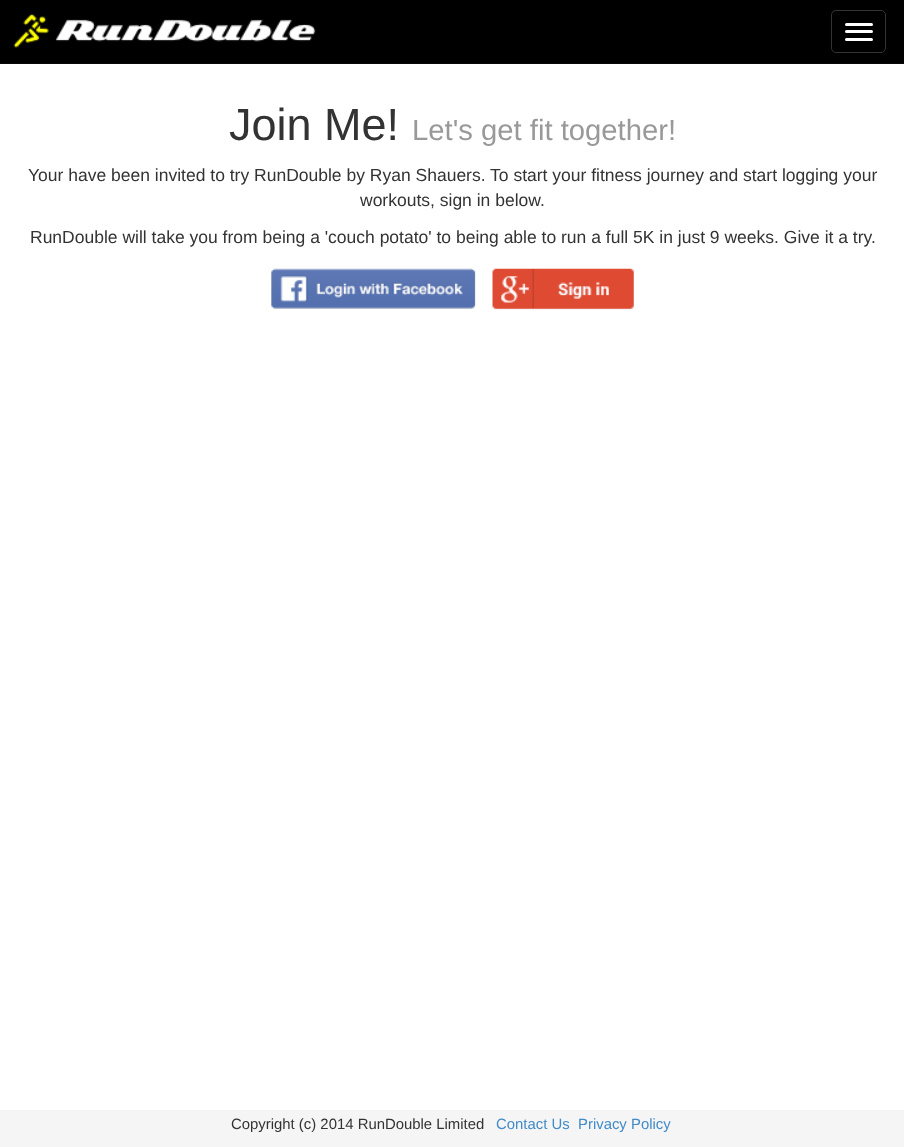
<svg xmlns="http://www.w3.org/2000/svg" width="904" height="1147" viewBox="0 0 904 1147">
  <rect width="100%" height="100%" fill="#fff"/>
  <path d="M0 0h904v63H0z" fill="#000"/>
  <path d="M0 63h904v1H0z" fill="#080808"/>
  <image x="13" y="13" width="303" height="35" href="img/1.png"/>
  <rect x="831.5" y="10.5" width="54" height="42" rx="4.5" fill="none" stroke="#333"/>
  <rect x="845" y="23" width="28" height="3" rx="1.5" fill="#fff"/>
  <rect x="845" y="30" width="28" height="3" rx="1.5" fill="#fff"/>
  <rect x="845" y="38" width="28" height="3" rx="1.5" fill="#fff"/>
  <image x="271" y="268" width="205" height="41" href="img/2.png"/>
  <image x="492" y="268" width="142" height="42" href="img/3.png"/>
  <path d="M0 1110h904v37H0z" fill="#f5f5f5"/>
  <text x="229" y="140" font-family="Liberation Sans" font-size="45" fill="#333">Join Me!</text>
  <text x="412" y="140" font-family="Liberation Sans" font-size="29.25" fill="#999">Let's get fit together!</text>
  <g font-family="Liberation Sans" font-size="17.5" fill="#333">
    <text x="28" y="181">Your have been invited to try RunDouble by Ryan Shauers. To start your fitness journey and start logging your</text>
    <text x="360" y="206">workouts, sign in below.</text>
    <text x="30" y="243">RunDouble will take you from being a 'couch potato' to being able to run a full 5K in just 9 weeks. Give it a try.</text>
  </g>
  <text x="231" y="1129" font-family="Liberation Sans" font-size="14.9" fill="#333">Copyright (c) 2014 RunDouble Limited</text>
  <g font-family="Liberation Sans" font-size="14.9" fill="#428bca">
    <text x="496" y="1129">Contact Us</text>
    <text x="578" y="1129">Privacy Policy</text>
  </g>
</svg>
